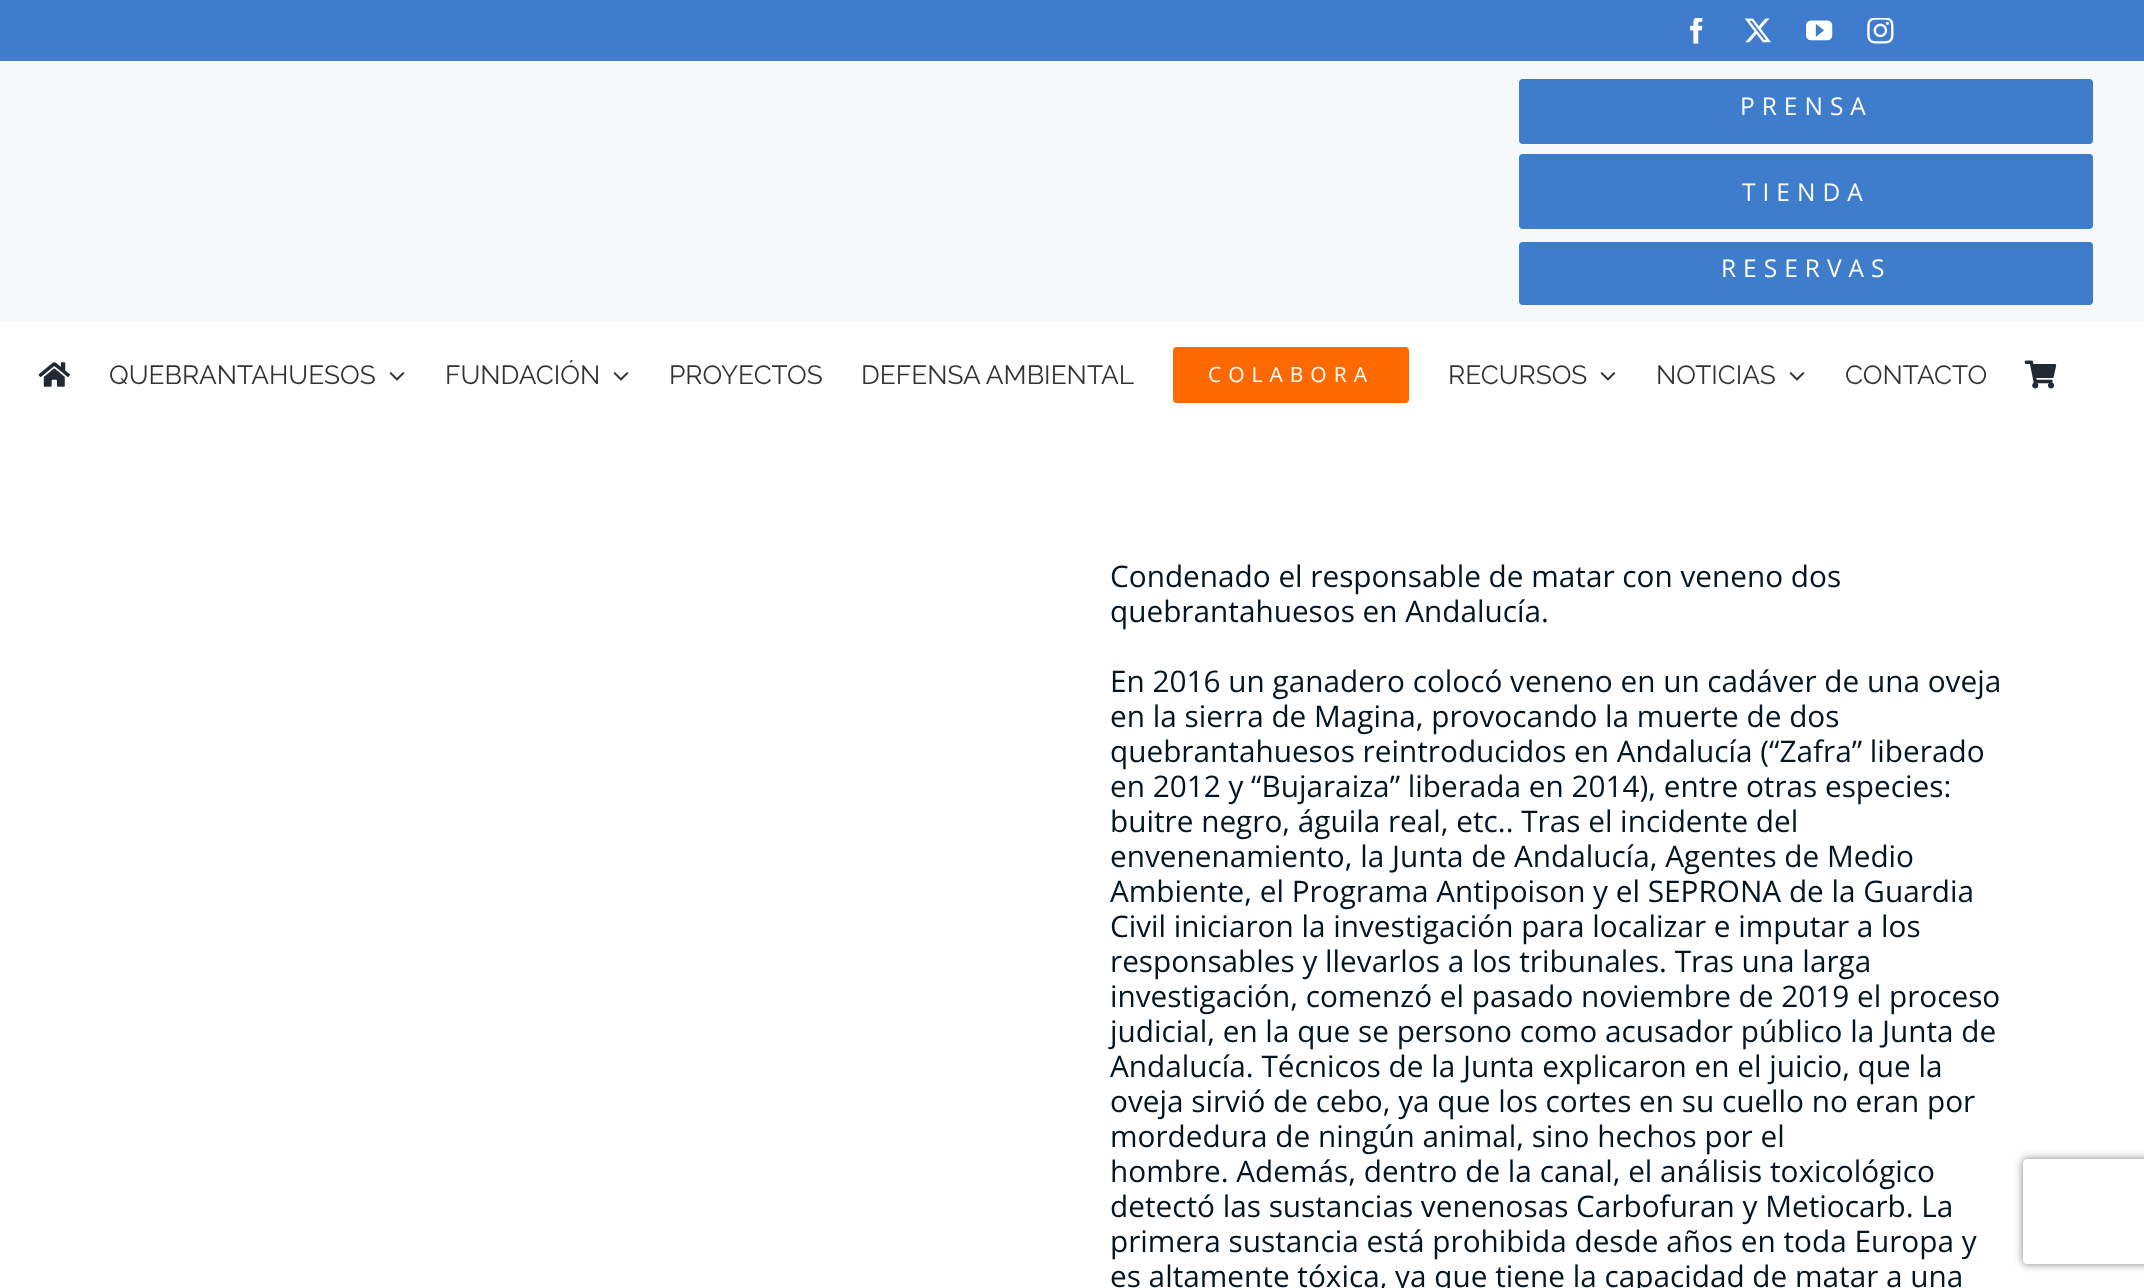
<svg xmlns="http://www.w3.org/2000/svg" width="2144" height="1288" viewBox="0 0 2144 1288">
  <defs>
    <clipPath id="clip1"><path d="M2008 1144H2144V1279H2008ZM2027 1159H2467C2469 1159 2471 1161 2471 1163V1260C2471 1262 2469 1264 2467 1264H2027C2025 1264 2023 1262 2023 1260V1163C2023 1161 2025 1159 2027 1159Z" clip-rule="evenodd"/></clipPath>
  </defs>
  <rect width="100%" height="100%" fill="#fff"/>
  <path d="M0 0h2144v61H0z" fill="#3f7ccd"/>
  <image x="1690" y="18" width="13" height="26" href="img/1.png"/>
  <image x="1744" y="18" width="27" height="25" href="img/2.png"/>
  <image x="1806" y="20" width="27" height="21" href="img/3.png"/>
  <image x="1867" y="18" width="27" height="26" href="img/4.png"/>
  <path d="M0 61h2144v261H0z" fill="#f7f8fa"/>
  <rect x="1519" y="79" width="574" height="65" rx="4" fill="#3e7ccc"/>
  <rect x="1519" y="154" width="574" height="75" rx="4" fill="#3e7ccc"/>
  <rect x="1519" y="242" width="574" height="63" rx="4" fill="#3e7ccc"/>
  <image x="38" y="362" width="32" height="25" href="img/5.png"/>
  <image x="389" y="372" width="16" height="9" href="img/6.png"/>
  <image x="613" y="372" width="16" height="9" href="img/6.png"/>
  <rect x="1173" y="347" width="236" height="56" rx="4" fill="#ff6900"/>
  <image x="1600" y="372" width="16" height="9" href="img/6.png"/>
  <image x="1789" y="372" width="16" height="9" href="img/6.png"/>
  <image x="2024" y="360" width="33" height="29" href="img/7.png"/>
  <g clip-path="url(#clip1)">
    <rect x="2023" y="1159" width="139" height="105" rx="4" fill="#808080" filter="blur(4.5px)"/>
  </g>
  <g font-family="Open Sans" font-size="24.5" letter-spacing="7" fill="#fff">
    <text x="1740" y="115">PRENSA</text>
    <text x="1742" y="201">TIENDA</text>
    <text x="1721" y="277">RESERVAS</text>
  </g>
  <g font-family="Raleway" font-size="26.25" fill="#333">
    <text x="109" y="384">QUEBRANTAHUESOS</text>
    <text x="445" y="384">FUNDACIÓN</text>
    <text x="669" y="384">PROYECTOS</text>
    <text x="861" y="384">DEFENSA AMBIENTAL</text>
  </g>
  <text x="1208" y="382" font-family="Open Sans" font-size="21" letter-spacing="7" fill="#fff">COLABORA</text>
  <g font-family="Raleway" font-size="26.25" fill="#333">
    <text x="1448" y="384">RECURSOS</text>
    <text x="1656" y="384">NOTICIAS</text>
    <text x="1845" y="384">CONTACTO</text>
  </g>
  <g font-family="Open Sans" font-size="29.75" fill="#011522">
    <text x="1110" y="587">Condenado el responsable de matar con veneno dos</text>
    <text x="1110" y="622">quebrantahuesos en Andalucía.</text>
    <text x="1110" y="692">En 2016 un ganadero colocó veneno en un cadáver de una oveja</text>
    <text x="1110" y="727">en la sierra de Magina, provocando la muerte de dos</text>
    <text x="1110" y="762">quebrantahuesos reintroducidos en Andalucía (“Zafra” liberado</text>
    <text x="1110" y="797">en 2012 y “Bujaraiza” liberada en 2014), entre otras especies:</text>
    <text x="1110" y="832">buitre negro, águila real, etc.. Tras el incidente del</text>
    <text x="1110" y="867">envenenamiento, la Junta de Andalucía, Agentes de Medio</text>
    <text x="1110" y="902">Ambiente, el Programa Antipoison y el SEPRONA de la Guardia</text>
    <text x="1110" y="937">Civil iniciaron la investigación para localizar e imputar a los</text>
    <text x="1110" y="972">responsables y llevarlos a los tribunales. Tras una larga</text>
    <text x="1110" y="1007">investigación, comenzó el pasado noviembre de 2019 el proceso</text>
    <text x="1110" y="1042">judicial, en la que se persono como acusador público la Junta de</text>
    <text x="1110" y="1077">Andalucía. Técnicos de la Junta explicaron en el juicio, que la</text>
    <text x="1110" y="1112">oveja sirvió de cebo, ya que los cortes en su cuello no eran por</text>
    <text x="1110" y="1147">mordedura de ningún animal, sino hechos por el</text>
    <text x="1110" y="1182">hombre. Además, dentro de la canal, el análisis toxicológico</text>
    <text x="1110" y="1217">detectó las sustancias venenosas Carbofuran y Metiocarb. La</text>
    <text x="1110" y="1252">primera sustancia está prohibida desde años en toda Europa y</text>
    <text x="1110" y="1287">es altamente tóxica, ya que tiene la capacidad de matar a una</text>
  </g>
</svg>
